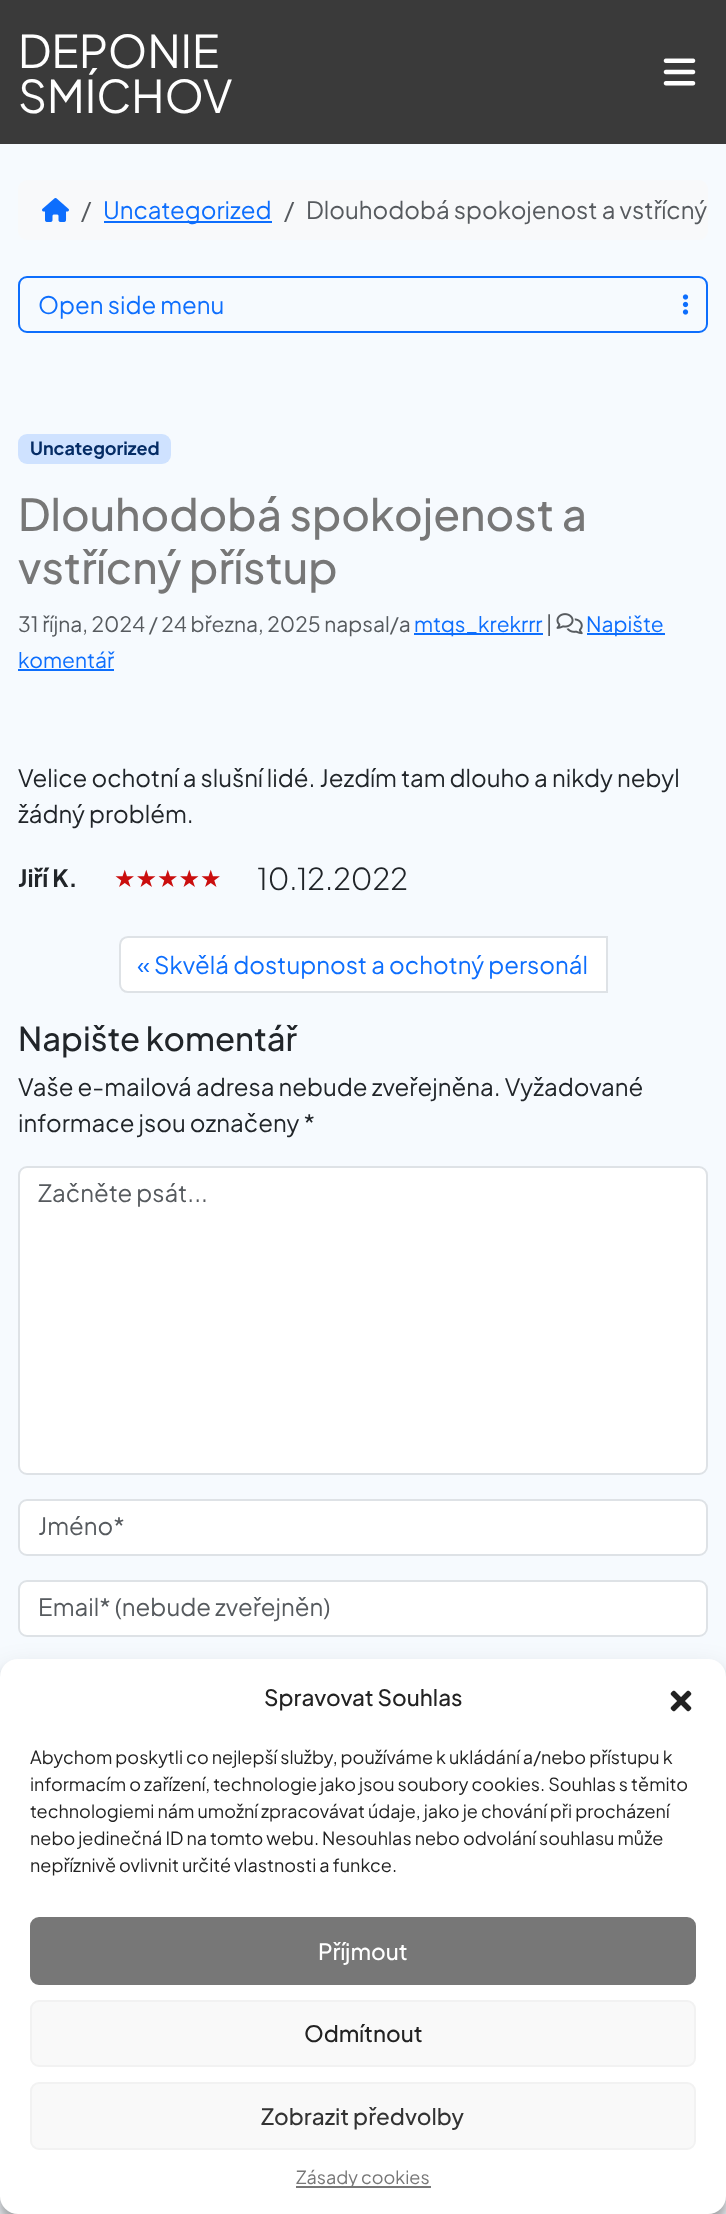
<svg xmlns="http://www.w3.org/2000/svg" width="726" height="2214" viewBox="0 0 726 2214">
  <rect width="100%" height="100%" fill="#f6fafe"/>
  <path d="M0 0h726v144H0z" fill="#3a3a3a"/>
  <image x="663" y="58" width="33" height="28" href="img/1.png"/>
  <rect x="18" y="180" width="690" height="60" rx="9" fill="#f8f9fa"/>
  <image x="42" y="198" width="27" height="24" href="img/2.png"/>
  <path d="M104 221h168v2H104z" fill="#0d6efd"/>
  <rect x="19" y="277" width="688" height="55" rx="8" fill="none" stroke="#0d6efd" stroke-width="2"/>
  <image x="682" y="294" width="7" height="21" href="img/3.png"/>
  <rect x="18" y="434" width="153" height="30" rx="9" fill="#cfe2ff"/>
  <path d="M414 633h129v2H414z" fill="#0d6efd"/>
  <image x="556" y="613" width="27" height="22" href="img/4.png"/>
  <path d="M587 633h78v2H587z" fill="#0d6efd"/>
  <path d="M18 669h96v2H18z" fill="#0d6efd"/>
  <path d="M128 937H607V992H128C123.5 992 120 988.5 120 984V945C120 940.5 123.5 937 128 937Z" fill="#fff" stroke="#dee2e6" stroke-width="2"/>
  <rect x="19" y="1167" width="688" height="307" rx="8" fill="#fff" stroke="#dee2e6" stroke-width="2"/>
  <rect x="19" y="1500" width="688" height="55" rx="8" fill="#fff" stroke="#dee2e6" stroke-width="2"/>
  <rect x="19" y="1581" width="688" height="55" rx="8" fill="#fff" stroke="#dee2e6" stroke-width="2"/>
  <rect y="1668" width="726" height="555" rx="18" fill="#0000003b" filter="blur(4.5px)"/>
  <rect y="1674" width="726" height="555" rx="18" fill="#00000030" filter="blur(15px)"/>
  <rect y="1659" width="726" height="555" rx="18" fill="#fff"/>
  <image x="670" y="1690" width="22" height="22" href="img/5.png"/>
  <rect x="31" y="1918" width="664" height="66" rx="8" fill="#777" stroke="#777" stroke-width="2"/>
  <rect x="31" y="2001" width="664" height="65" rx="8" fill="#f9f9f9" stroke="#f2f2f2" stroke-width="2"/>
  <rect x="31" y="2083" width="664" height="66" rx="8" fill="#f9f9f9" stroke="#f2f2f2" stroke-width="2"/>
  <path d="M296 2186h135v2H296z" fill="#777"/>
  <g font-family="Plus Jakarta Sans" font-size="45" fill="#fff">
    <text x="18" y="68">DEPONIE</text>
    <text x="18" y="113">SMÍCHOV</text>
  </g>
  <text x="81" y="219" font-family="Plus Jakarta Sans" font-size="24" fill="#565a5e">/</text>
  <text x="103" y="219" font-family="Plus Jakarta Sans" font-size="24" fill="#0d6efd">Uncategorized</text>
  <g font-family="Plus Jakarta Sans" font-size="24" fill="#565a5e">
    <text x="284" y="219">/</text>
    <text x="306" y="219">Dlouhodobá spokojenost a vstřícný</text>
  </g>
  <text x="38" y="314" font-family="Plus Jakarta Sans" font-size="24" fill="#0d6efd">Open side menu</text>
  <text x="30" y="455" font-family="Plus Jakarta Sans" font-size="18" font-weight="bold" fill="#052c65">Uncategorized</text>
  <g font-family="Plus Jakarta Sans" font-size="43.9" font-weight="500" fill="#777">
    <text x="18" y="531">Dlouhodobá spokojenost a</text>
    <text x="18" y="584">vstřícný přístup</text>
  </g>
  <text x="18" y="632" font-family="Plus Jakarta Sans" font-size="21" fill="#565a5e">31 října, 2024 / 24 března, 2025 napsal/a</text>
  <text x="414" y="632" font-family="Plus Jakarta Sans" font-size="21" fill="#0d6efd">mtqs_krekrrr</text>
  <text x="546" y="632" font-family="Plus Jakarta Sans" font-size="21" fill="#565a5e">|</text>
  <g font-family="Plus Jakarta Sans" font-size="21" fill="#0d6efd">
    <text x="586" y="632">Napište</text>
    <text x="18" y="668">komentář</text>
  </g>
  <g font-family="Plus Jakarta Sans" font-size="24" fill="#212529">
    <text x="18" y="787">Velice ochotní a slušní lidé. Jezdím tam dlouho a nikdy nebyl</text>
    <text x="18" y="823">žádný problém.</text>
  </g>
  <text x="18" y="887" font-family="Plus Jakarta Sans" font-size="24" font-weight="bold" fill="#212529">Jiří K.</text>
  <text x="114" y="887" font-family="DejaVu Sans" font-size="24" fill="#ca0e0e">★★★★★</text>
  <text x="257" y="890" font-family="Plus Jakarta Sans" font-size="30" font-weight="300" fill="#212529">10.12.2022</text>
  <text x="137" y="974" font-family="Plus Jakarta Sans" font-size="24" fill="#0d6efd">« Skvělá dostupnost a ochotný personál</text>
  <text x="18" y="1051" font-family="Plus Jakarta Sans" font-size="32.75" font-weight="500" fill="#212529">Napište komentář</text>
  <g font-family="Plus Jakarta Sans" font-size="24" fill="#212529">
    <text x="18" y="1096">Vaše e-mailová adresa nebude zveřejněna. Vyžadované</text>
    <text x="18" y="1132">informace jsou označeny *</text>
  </g>
  <g font-family="Plus Jakarta Sans" font-size="24" fill="#565a5e">
    <text x="38" y="1202">Začněte psát...</text>
    <text x="38" y="1535">Jméno*</text>
    <text x="38" y="1616">Email* (nebude zveřejněn)</text>
  </g>
  <text x="264" y="1706" font-family="Plus Jakarta Sans" font-size="22.5" font-weight="500" fill="#222">Spravovat Souhlas</text>
  <g font-family="Plus Jakarta Sans" font-size="18" fill="#222">
    <text x="30" y="1764">Abychom poskytli co nejlepší služby, používáme k ukládání a/nebo přístupu k</text>
    <text x="30" y="1791">informacím o zařízení, technologie jako jsou soubory cookies. Souhlas s těmito</text>
    <text x="30" y="1818">technologiemi nám umožní zpracovávat údaje, jako je chování při procházení</text>
    <text x="30" y="1845">nebo jedinečná ID na tomto webu. Nesouhlas nebo odvolání souhlasu může</text>
    <text x="30" y="1872">nepříznivě ovlivnit určité vlastnosti a funkce.</text>
  </g>
  <text x="318" y="1960" font-family="Plus Jakarta Sans" font-size="22.5" font-weight="500" fill="#fff">Příjmout</text>
  <text x="304" y="2042" font-family="Plus Jakarta Sans" font-size="22.5" font-weight="500" fill="#222">Odmítnout</text>
  <text x="261" y="2125" font-family="Plus Jakarta Sans" font-size="22.5" font-weight="500" fill="#333">Zobrazit předvolby</text>
  <text x="296" y="2184" font-family="Plus Jakarta Sans" font-size="18" fill="#777">Zásady cookies</text>
</svg>
